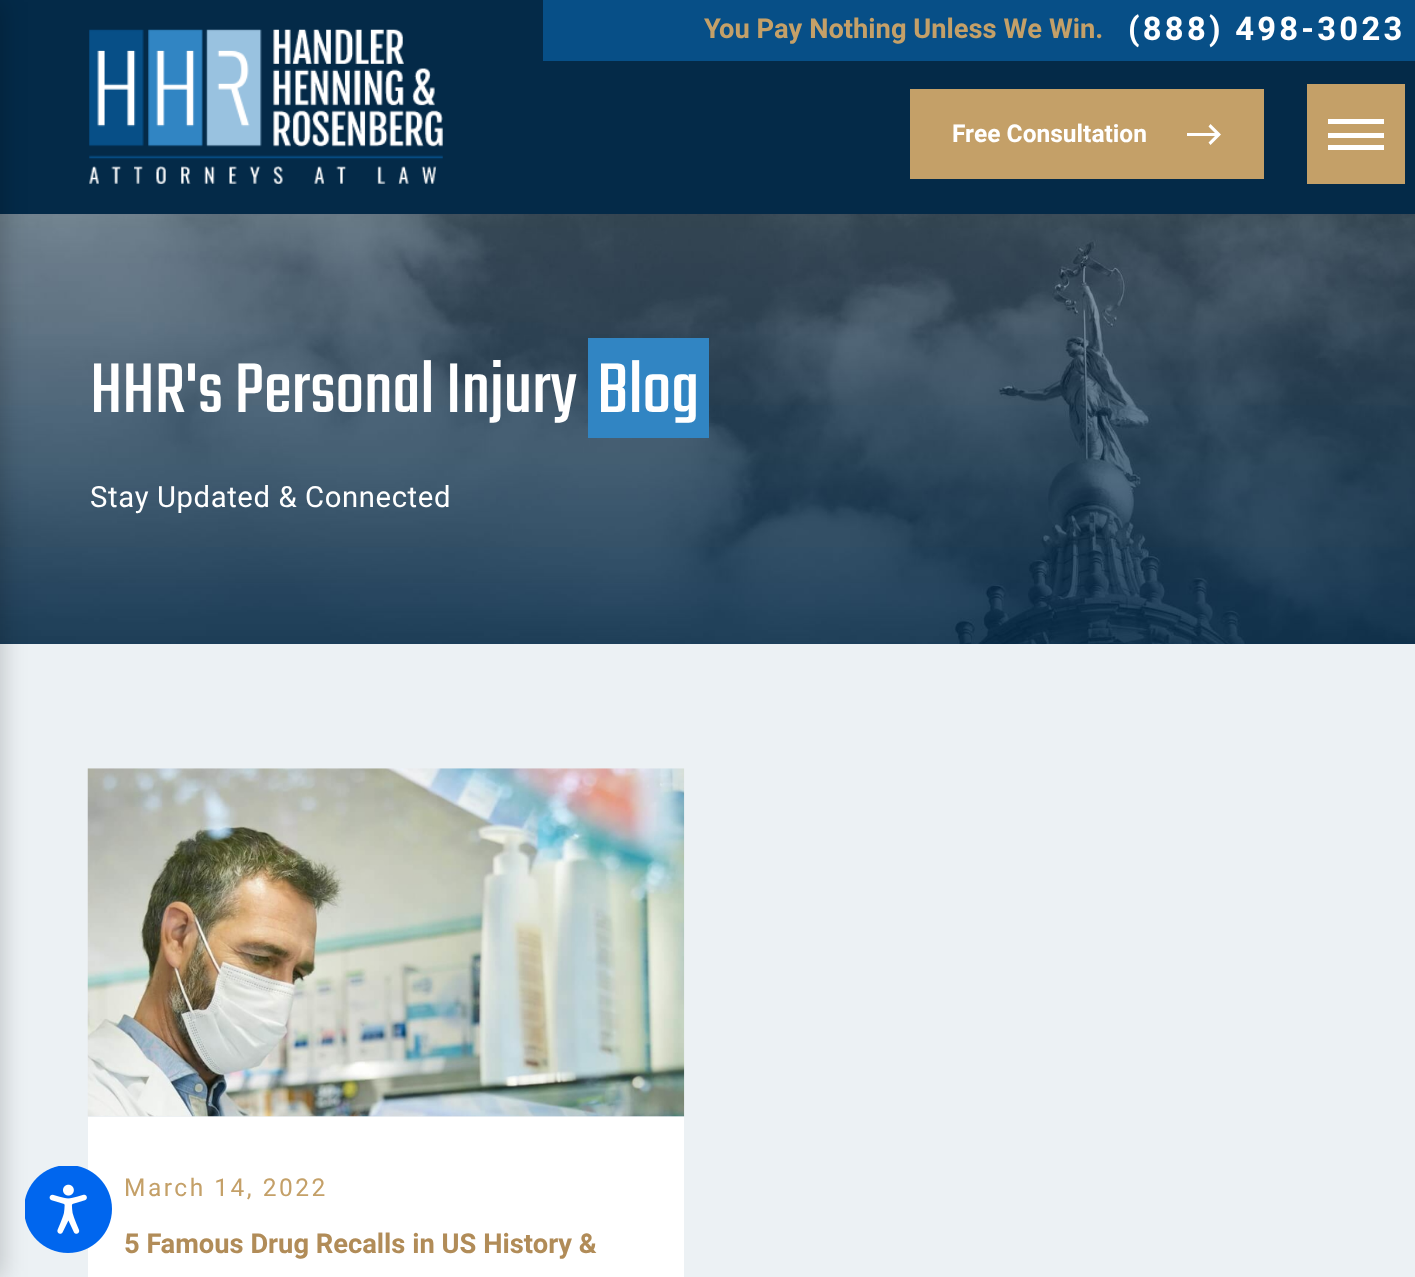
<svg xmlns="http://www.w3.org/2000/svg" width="1415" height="1277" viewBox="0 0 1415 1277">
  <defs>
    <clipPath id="clip1"><path d="M1187 117h35v34H1187z"/></clipPath>
  </defs>
  <rect width="100%" height="100%" fill="#fff"/>
  <path d="M0 0h1415v214H0z" fill="#042a48"/>
  <image x="89" y="29" width="354" height="155" href="img/1.png"/>
  <path d="M543 0h872v61H543z" fill="#074f87"/>
  <path d="M0 644h1415v633H0z" fill="#ecf1f4"/>
  <path d="M88 1117h596v160H88z" fill="#fff"/>
  <image x="25" y="1166" width="87" height="87" href="img/2.png"/>
  <image x="0" y="214" width="1415" height="430" href="img/3.png"/>
  <path d="M-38 2h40v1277H-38z" fill="#00000033" filter="blur(12.5px)"/>
  <path d="M910 89h354v90H910z" fill="#c4a068"/>
  <g clip-path="url(#clip1)">
    <path d="M1210.5 124L1208.5 126.5L1215 133H1186.5V136H1215L1208.5 142.5L1210.5 145L1221 134.5Z" fill="#fff"/>
  </g>
  <path d="M1307 84h98v100H1307z" fill="#c4a068"/>
  <path d="M1328 119h56v5H1328z" fill="#fff"/>
  <path d="M1328 133h56v5H1328z" fill="#fff"/>
  <path d="M1328 145h56v5H1328z" fill="#fff"/>
  <path d="M588 338h121v100H588z" fill="#3185c3"/>
  <image x="87" y="768" width="598" height="349" href="img/4.png"/>
  <text x="704" y="38" font-family="Heebo" font-size="27.3" font-weight="bold" fill="#c4a068">You Pay Nothing Unless We Win.</text>
  <text x="1128" y="40" font-family="Heebo" font-size="32.75" font-weight="bold" letter-spacing="3.25" fill="#fff">(888) 498-3023</text>
  <text x="952" y="142" font-family="Heebo" font-size="24.5" font-weight="bold" fill="#fff">Free Consultation</text>
  <g font-family="Teko" font-size="77.5" font-weight="300" fill="#fff">
    <text x="90" y="412">HHR's Personal Injury</text>
    <text x="597" y="412">Blog</text>
  </g>
  <text x="90" y="507" font-family="Heebo" font-size="29.25" letter-spacing="0.6" fill="#fff">Stay Updated &amp; Connected</text>
  <text x="124" y="1196" font-family="Heebo" font-size="24.5" letter-spacing="2.5" fill="#c4a068">March 14, 2022</text>
  <text x="124" y="1253" font-family="Heebo" font-size="27.3" font-weight="bold" fill="#b18c58">5 Famous Drug Recalls in US History &amp;</text>
</svg>
